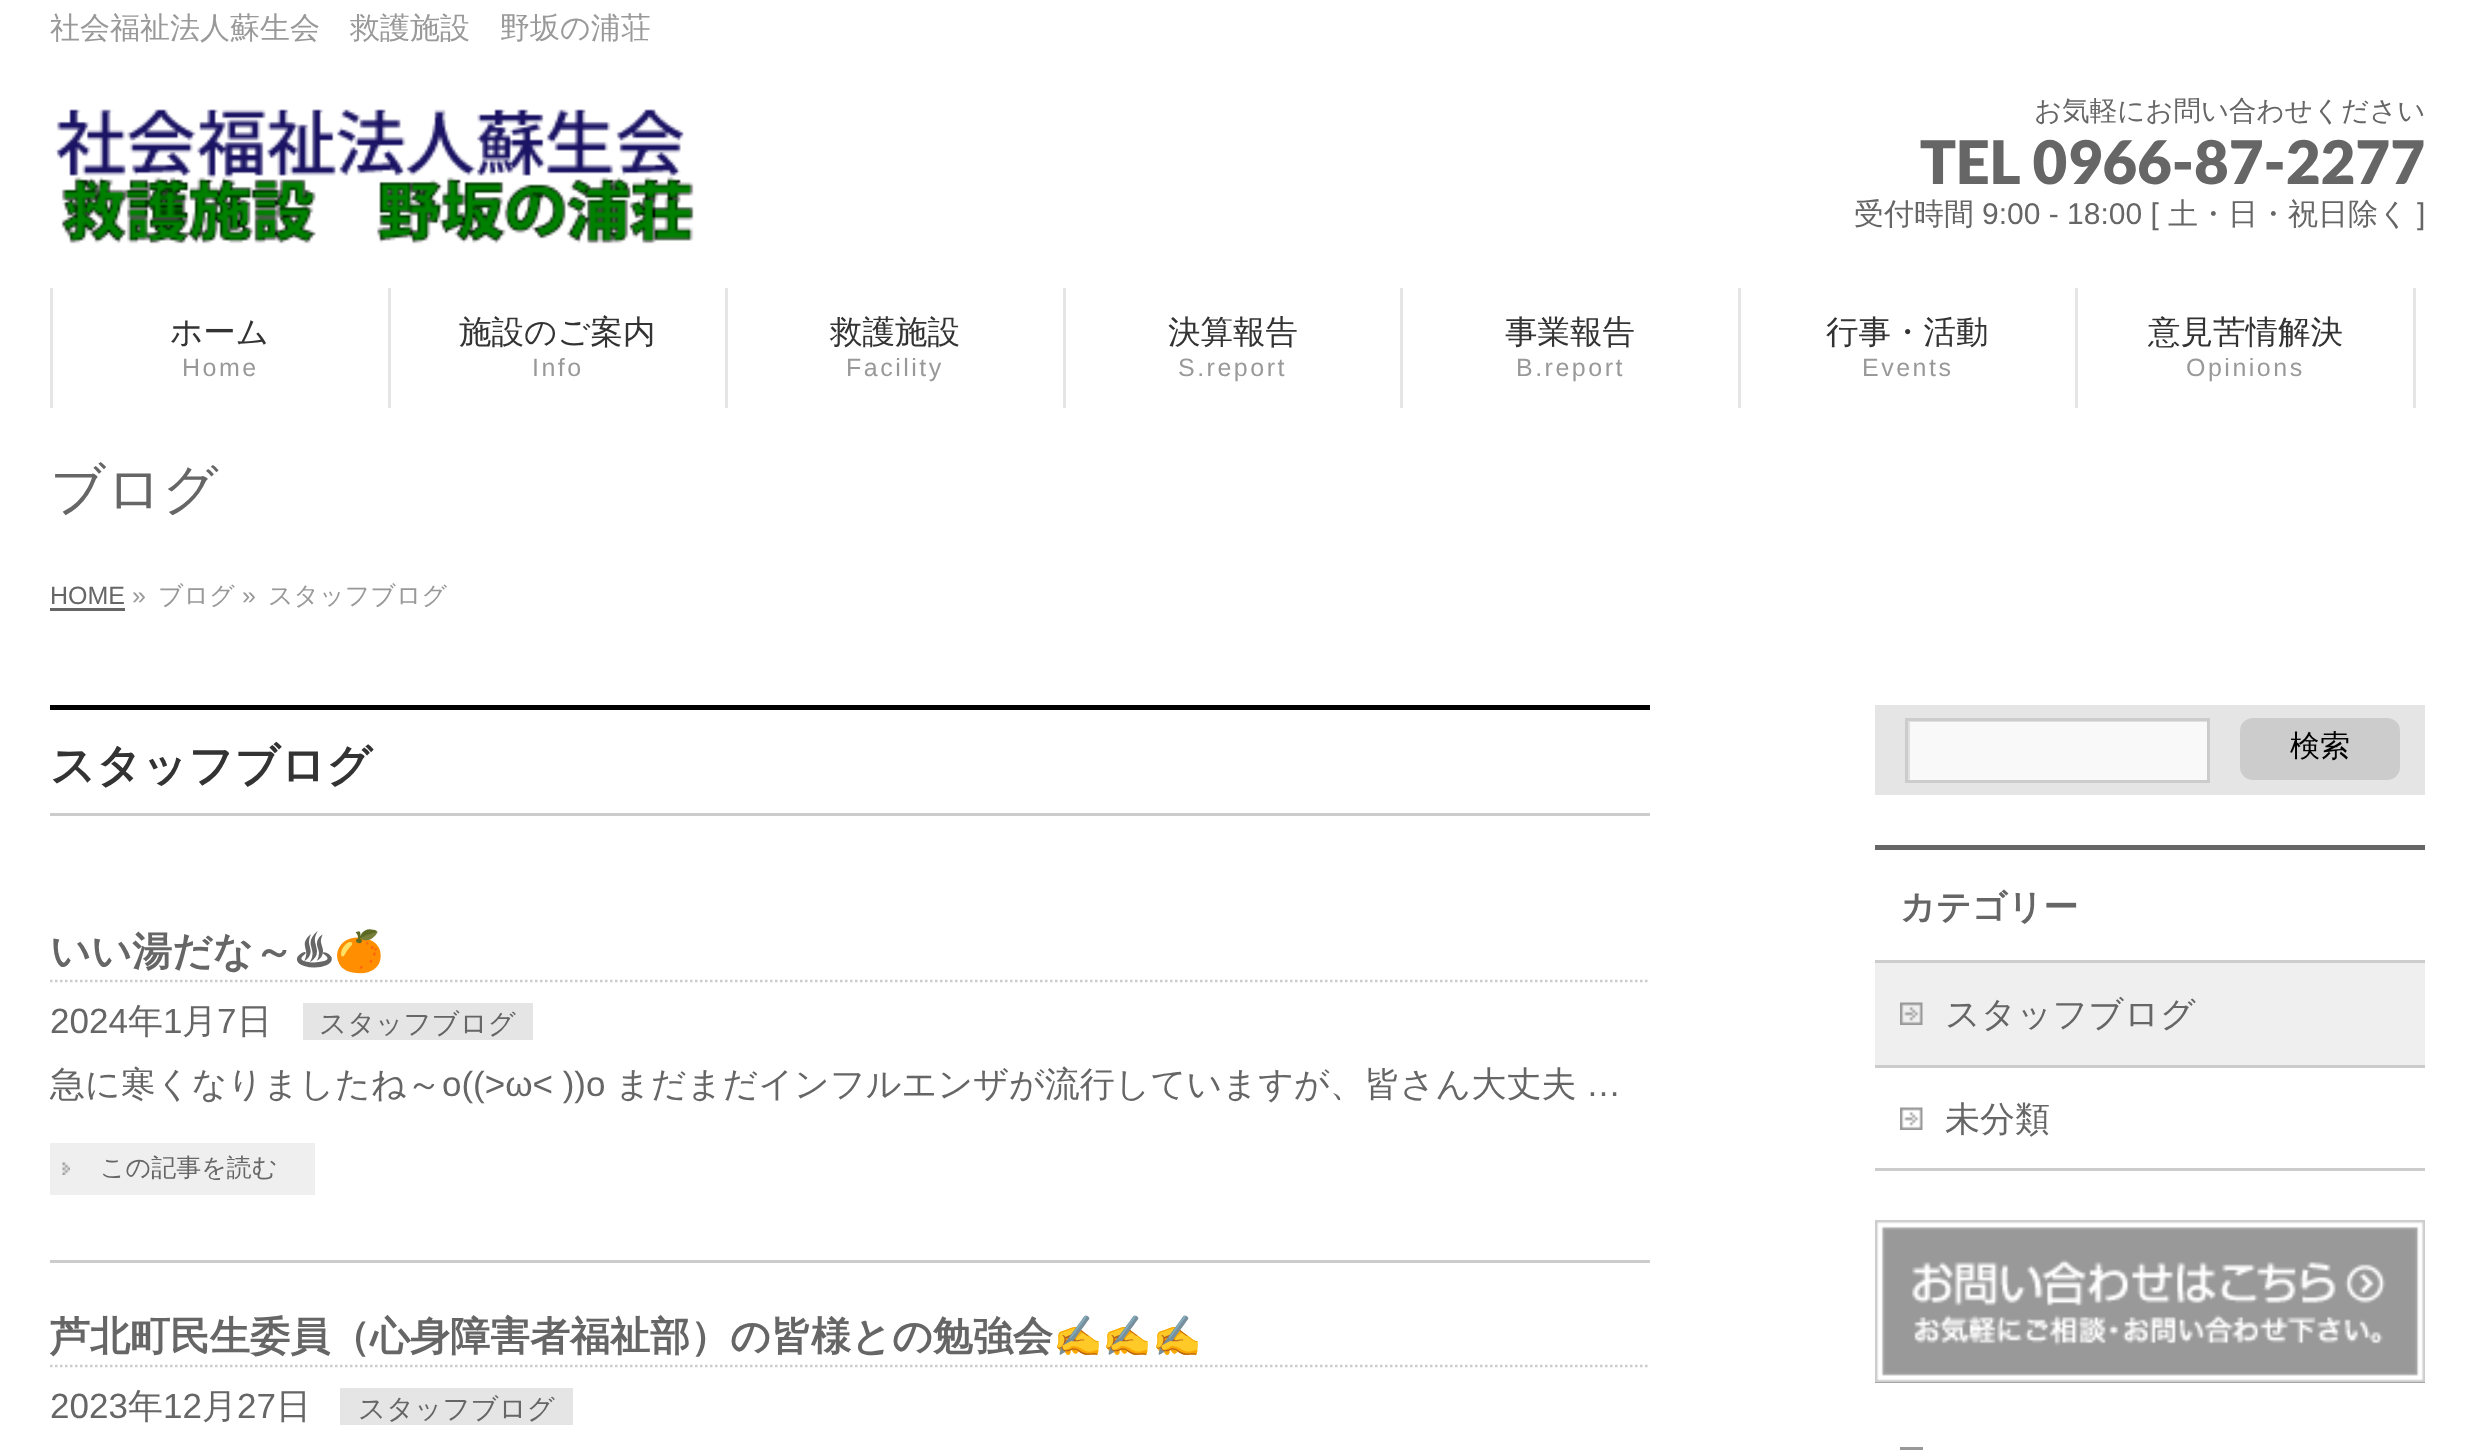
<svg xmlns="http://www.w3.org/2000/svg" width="2475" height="1450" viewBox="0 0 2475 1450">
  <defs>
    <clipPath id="clip1"><path d="M1908 720h300v60H1908z"/></clipPath>
  </defs>
  <rect width="100%" height="100%" fill="#fff"/>
  <image x="55" y="109" width="639" height="135" href="img/1.png"/>
  <path d="M50 288h3v120H50z" fill="#e5e5e5"/>
  <path d="M388 288h3v120H388z" fill="#e5e5e5"/>
  <path d="M725 288h3v120H725z" fill="#e5e5e5"/>
  <path d="M1063 288h3v120H1063z" fill="#e5e5e5"/>
  <path d="M1400 288h3v120H1400z" fill="#e5e5e5"/>
  <path d="M1738 288h3v120H1738z" fill="#e5e5e5"/>
  <path d="M2075 288h3v120H2075z" fill="#e5e5e5"/>
  <path d="M2413 288h3v120H2413z" fill="#e5e5e5"/>
  <path d="M50 608h75v3H50z" fill="#666"/>
  <path d="M50 705h1600v5H50z" fill="#000"/>
  <path d="M50 813h1600v3H50z" fill="#ccc"/>
  <path d="M50 1260h1600v3H50z" fill="#ccc"/>
  <path d="M50 981H1650" fill="none" stroke="#ccc" stroke-width="2.5" stroke-dasharray="2.5 2.5"/>
  <path d="M303 1003h230v37H303z" fill="#e5e5e5"/>
  <path d="M50 1143h265v52H50z" fill="#efefef"/>
  <image x="62" y="1162" width="8" height="13" href="img/2.png"/>
  <path d="M50 1366H1650" fill="none" stroke="#ccc" stroke-width="2.5" stroke-dasharray="2.5 2.5"/>
  <path d="M340 1388h233v37H340z" fill="#e5e5e5"/>
  <path d="M1875 705h550v90H1875z" fill="#e5e5e5"/>
  <path d="M1910 722h297v58H1910z" fill="#f9f9f9"/>
  <g clip-path="url(#clip1)">
    <path d="M1660 472H2455V1028H1660ZM1910 722H2210V782H1910Z" fill="#e0e0e0" fill-rule="evenodd"/>
  </g>
  <path d="M1906.5 719.5h302v62H1906.5z" fill="none" stroke="#ccc" stroke-width="3"/>
  <rect x="2240" y="718" width="160" height="62" rx="13" fill="#ccc"/>
  <path d="M1875 845h550v5H1875z" fill="#666"/>
  <path d="M1875 960h550v3H1875z" fill="#ccc"/>
  <path d="M1875 1065h550v3H1875z" fill="#ccc"/>
  <path d="M1875 963h550v102H1875z" fill="#efefef"/>
  <image x="1900" y="1002" width="23" height="23" href="img/3.png"/>
  <path d="M1875 1168h550v3H1875z" fill="#ccc"/>
  <image x="1900" y="1107" width="23" height="23" href="img/4.png"/>
  <path d="M1875 1226h550v157H1875z" fill="#999"/>
  <image x="1875" y="1220" width="550" height="163" href="img/5.png"/>
  <path d="M1900 1447h23v3H1900z" fill="#999"/>
  <text x="50" y="38" font-family="WenQuanYi Zen Hei" font-size="30" font-weight="500" fill="#999">社会福祉法人蘇生会　救護施設　野坂の浦荘</text>
  <text x="2034" y="120" font-family="WenQuanYi Zen Hei" font-size="27.5" font-weight="500" fill="#666">お気軽にお問い合わせください</text>
  <text x="1920" y="184" font-family="Lato" font-size="60" font-weight="900" fill="#666">TEL 0966-87-2277</text>
  <text x="1854" y="224" font-family="WenQuanYi Zen Hei" font-size="30" font-weight="500" fill="#666">受付時間</text>
  <text x="1982" y="224" font-family="Liberation Sans" font-size="30" fill="#666">9:00 - 18:00 [</text>
  <text x="2168" y="224" font-family="WenQuanYi Zen Hei" font-size="30" font-weight="500" fill="#666">土・日・祝日除く</text>
  <text x="2417" y="224" font-family="Liberation Sans" font-size="30" fill="#666">]</text>
  <text x="170" y="343" font-family="WenQuanYi Zen Hei" font-size="32.5" font-weight="500" fill="#333">ホーム</text>
  <text x="182" y="376" font-family="Liberation Sans" font-size="25" letter-spacing="2.5" fill="#999">Home</text>
  <text x="459" y="343" font-family="WenQuanYi Zen Hei" font-size="32.5" font-weight="500" fill="#333">施設のご案内</text>
  <text x="532" y="376" font-family="Liberation Sans" font-size="25" letter-spacing="2.5" fill="#999">Info</text>
  <text x="830" y="343" font-family="WenQuanYi Zen Hei" font-size="32.5" font-weight="500" fill="#333">救護施設</text>
  <text x="846" y="376" font-family="Liberation Sans" font-size="25" letter-spacing="2.5" fill="#999">Facility</text>
  <text x="1168" y="343" font-family="WenQuanYi Zen Hei" font-size="32.5" font-weight="500" fill="#333">決算報告</text>
  <text x="1178" y="376" font-family="Liberation Sans" font-size="25" letter-spacing="2.5" fill="#999">S.report</text>
  <text x="1505" y="343" font-family="WenQuanYi Zen Hei" font-size="32.5" font-weight="500" fill="#333">事業報告</text>
  <text x="1516" y="376" font-family="Liberation Sans" font-size="25" letter-spacing="2.5" fill="#999">B.report</text>
  <text x="1826" y="343" font-family="WenQuanYi Zen Hei" font-size="32.5" font-weight="500" fill="#333">行事・活動</text>
  <text x="1862" y="376" font-family="Liberation Sans" font-size="25" letter-spacing="2.5" fill="#999">Events</text>
  <text x="2148" y="343" font-family="WenQuanYi Zen Hei" font-size="32.5" font-weight="500" fill="#333">意見苦情解決</text>
  <text x="2186" y="376" font-family="Liberation Sans" font-size="25" letter-spacing="2.5" fill="#999">Opinions</text>
  <text x="50" y="508" font-family="WenQuanYi Zen Hei" font-size="55" font-weight="500" fill="#666">ブログ</text>
  <text x="50" y="604" font-family="Liberation Sans" font-size="25" fill="#666">HOME</text>
  <text x="132" y="604" font-family="Liberation Sans" font-size="25" fill="#999">»</text>
  <text x="158" y="604" font-family="WenQuanYi Zen Hei" font-size="25" font-weight="500" fill="#999">ブログ</text>
  <text x="242" y="604" font-family="Liberation Sans" font-size="25" fill="#999">»</text>
  <text x="268" y="604" font-family="WenQuanYi Zen Hei" font-size="25" font-weight="500" fill="#999">スタッフブログ</text>
  <text x="50" y="781" font-family="WenQuanYi Zen Hei" font-size="45" font-weight="bold" fill="#333">スタッフブログ</text>
  <text x="50" y="965" font-family="WenQuanYi Zen Hei" font-size="40" font-weight="bold" fill="#666">いい湯だな～♨</text>
  <text x="334" y="965" font-family="Noto Color Emoji" font-size="40" font-weight="bold" fill="#666">🍊</text>
  <text x="50" y="1033" font-family="Liberation Sans" font-size="35" fill="#666">2024</text>
  <text x="128" y="1033" font-family="WenQuanYi Zen Hei" font-size="35" font-weight="500" fill="#666">年</text>
  <text x="163" y="1033" font-family="Liberation Sans" font-size="35" fill="#666">1</text>
  <text x="182" y="1033" font-family="WenQuanYi Zen Hei" font-size="35" font-weight="500" fill="#666">月</text>
  <text x="217" y="1033" font-family="Liberation Sans" font-size="35" fill="#666">7</text>
  <text x="237" y="1033" font-family="WenQuanYi Zen Hei" font-size="35" font-weight="500" fill="#666">日</text>
  <text x="319" y="1033" font-family="WenQuanYi Zen Hei" font-size="27.5" font-weight="500" fill="#666">スタッフブログ</text>
  <text x="50" y="1096" font-family="WenQuanYi Zen Hei" font-size="35" font-weight="500" fill="#666">急に寒くなりましたね～</text>
  <text x="442" y="1096" font-family="Liberation Sans" font-size="35" fill="#666">o((&gt;ω&lt; ))o</text>
  <text x="615" y="1096" font-family="WenQuanYi Zen Hei" font-size="35" font-weight="500" fill="#666">まだまだインフルエンザが流行していますが、皆さん大丈夫</text>
  <text x="1586" y="1096" font-family="Liberation Sans" font-size="35" fill="#666">…</text>
  <text x="100" y="1176" font-family="WenQuanYi Zen Hei" font-size="25" font-weight="500" fill="#666">この記事を読む</text>
  <text x="50" y="1350" font-family="WenQuanYi Zen Hei" font-size="40" font-weight="bold" fill="#666">芦北町民生委員（心身障害者福祉部）の皆様との勉強会</text>
  <text x="1053" y="1350" font-family="Noto Color Emoji" font-size="40" font-weight="bold" fill="#666">✍✍✍</text>
  <text x="50" y="1418" font-family="Liberation Sans" font-size="35" fill="#666">2023</text>
  <text x="128" y="1418" font-family="WenQuanYi Zen Hei" font-size="35" font-weight="500" fill="#666">年</text>
  <text x="163" y="1418" font-family="Liberation Sans" font-size="35" fill="#666">12</text>
  <text x="202" y="1418" font-family="WenQuanYi Zen Hei" font-size="35" font-weight="500" fill="#666">月</text>
  <text x="237" y="1418" font-family="Liberation Sans" font-size="35" fill="#666">27</text>
  <text x="276" y="1418" font-family="WenQuanYi Zen Hei" font-size="35" font-weight="500" fill="#666">日</text>
  <text x="358" y="1418" font-family="WenQuanYi Zen Hei" font-size="27.5" font-weight="500" fill="#666">スタッフブログ</text>
  <text x="2290" y="756" font-family="WenQuanYi Zen Hei" font-size="30" font-weight="500" fill="#000">検索</text>
  <text x="1900" y="919" font-family="WenQuanYi Zen Hei" font-size="35" font-weight="bold" fill="#666">カテゴリー</text>
  <g font-family="WenQuanYi Zen Hei" font-size="35" font-weight="500" fill="#666">
    <text x="1945" y="1026">スタッフブログ</text>
    <text x="1945" y="1131">未分類</text>
  </g>
</svg>
